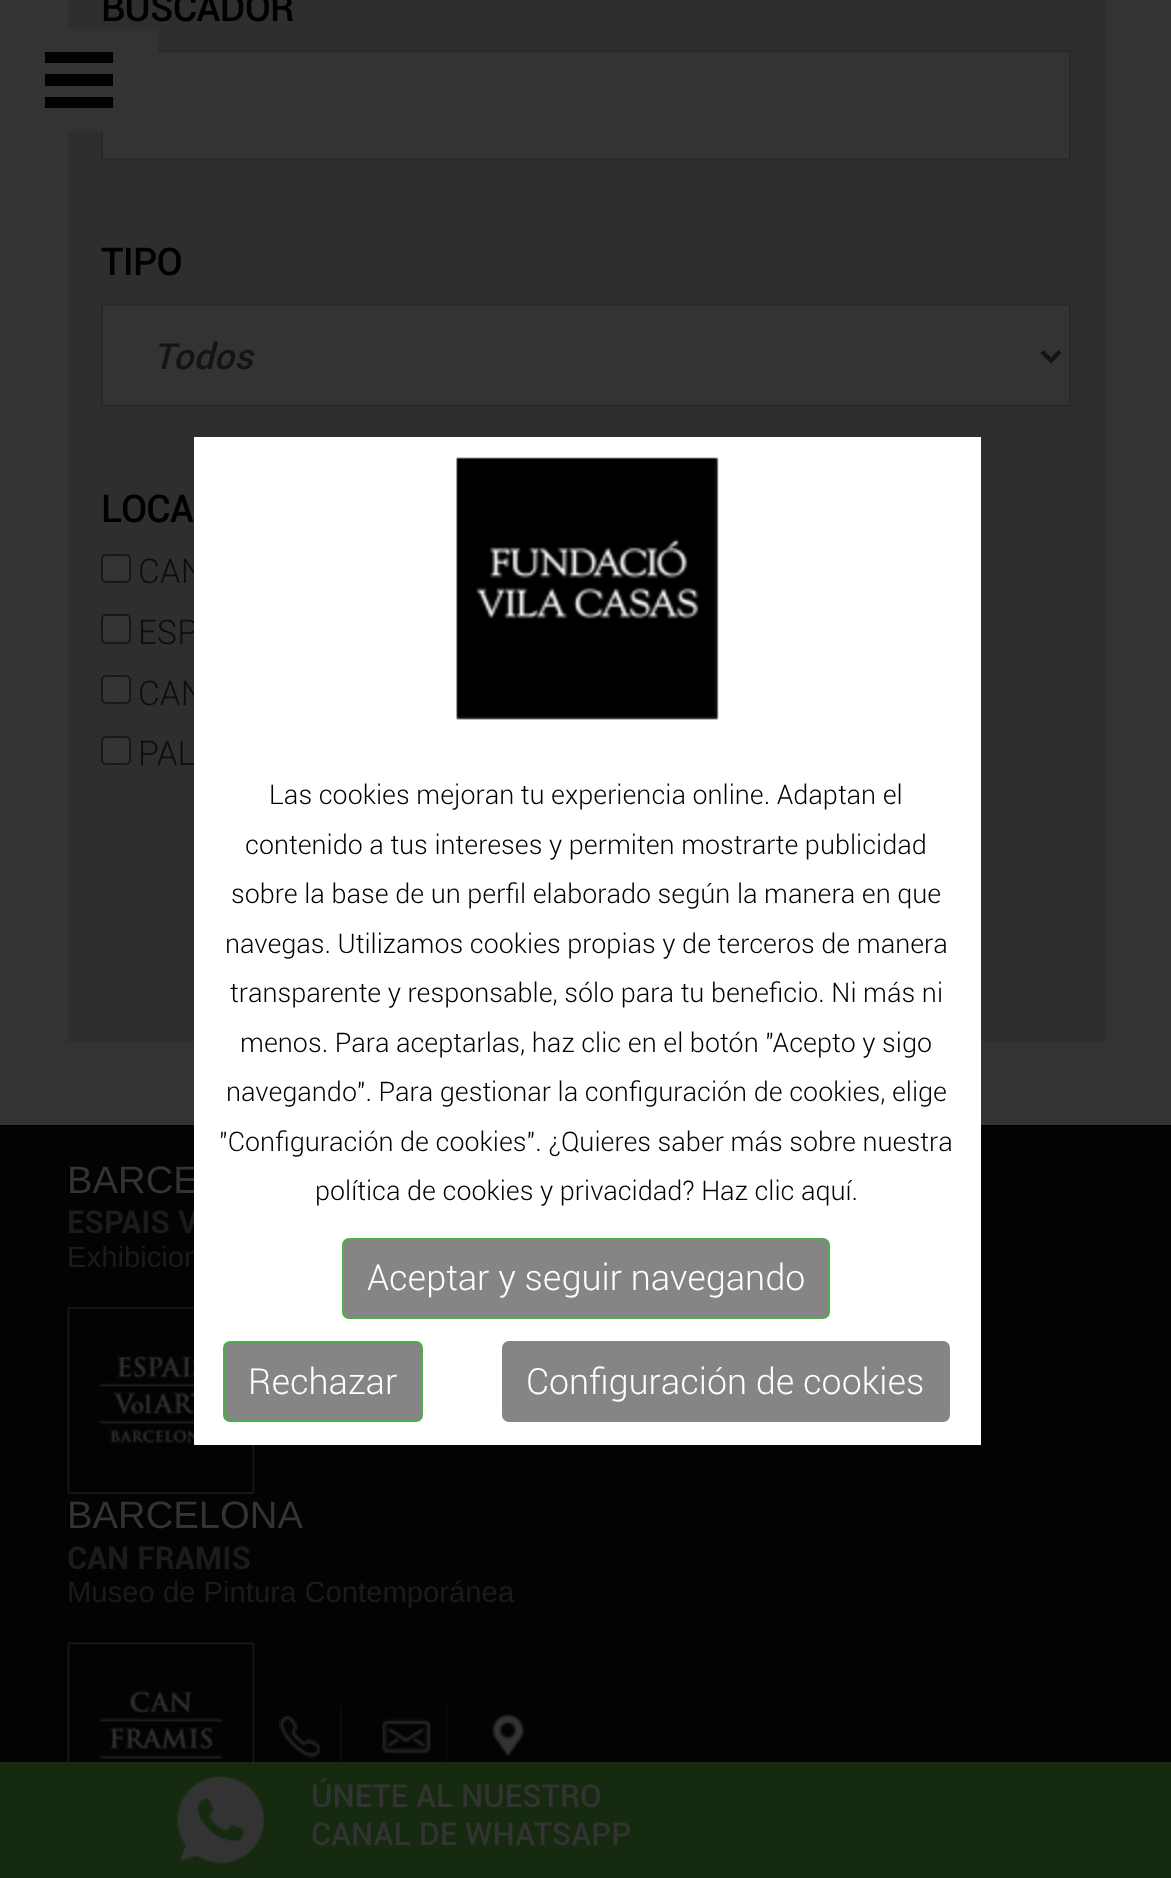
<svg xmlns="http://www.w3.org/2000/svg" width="1171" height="1878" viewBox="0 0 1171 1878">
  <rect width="100%" height="100%" fill="#333"/>
  <path d="M68 0h1037v1042H68z" fill="#2e2e2e"/>
  <path d="M102 51h968v108H102z" fill="#333" stroke="#292929" stroke-width="2"/>
  <path d="M102 305h968v101H102z" fill="#333" stroke="#292929" stroke-width="2"/>
  <path d="M1042 351.5L1051 360.5L1060 351.5" fill="none" stroke="#141414" stroke-width="4.5"/>
  <rect x="102" y="555" width="28" height="27" rx="4" fill="#333" stroke="#181818" stroke-width="2"/>
  <rect x="102" y="615" width="28" height="28" rx="4" fill="#333" stroke="#181818" stroke-width="2"/>
  <rect x="102" y="676" width="28" height="27" rx="4" fill="#333" stroke="#181818" stroke-width="2"/>
  <rect x="102" y="737" width="28" height="27" rx="4" fill="#333" stroke="#181818" stroke-width="2"/>
  <path d="M68 29h90v102H68z" fill="#333"/>
  <path d="M45 52h68v11H45z" fill="#000"/>
  <path d="M45 74h68v12H45z" fill="#000"/>
  <path d="M45 97h68v11H45z" fill="#000"/>
  <path d="M0 1125h1171v637H0z" fill="#030303"/>
  <image x="67" y="1307" width="188" height="187" href="img/2.png"/>
  <image x="67" y="1642" width="188" height="120" href="img/3.png"/>
  <image x="279" y="1705" width="63" height="57" href="img/4.png"/>
  <image x="382" y="1705" width="66" height="57" href="img/5.png"/>
  <image x="492" y="1714" width="33" height="44" href="img/6.png"/>
  <path d="M0 1762h1171v116H0z" fill="#152a0f"/>
  <image x="176" y="1776" width="89" height="88" href="img/7.png"/>
  <g font-family="Roboto" font-size="38.25" font-weight="500" letter-spacing="-0.75" fill="#000">
    <text x="101" y="21">BUSCADOR</text>
    <text x="101" y="275">TIPO</text>
  </g>
  <text x="153" y="369" font-family="Roboto" font-size="36" font-weight="500" font-style="italic" fill="#141414">Todos</text>
  <text x="101" y="522" font-family="Roboto" font-size="38.25" font-weight="500" letter-spacing="-0.75" fill="#000">LOCA</text>
  <g font-family="Roboto" font-size="34" font-weight="300" fill="#0d0d0d">
    <text x="138" y="583">CAN</text>
    <text x="138" y="644">ESP</text>
    <text x="138" y="705">CAN</text>
    <text x="138" y="765">PAL</text>
  </g>
  <text x="67" y="1193" font-family="Liberation Sans" font-size="38.25" fill="#333">BARCE</text>
  <text x="67" y="1233" font-family="Roboto" font-size="31.5" font-weight="bold" fill="#1b1b1b">ESPAIS V</text>
  <text x="67" y="1267" font-family="Liberation Sans" font-size="29.25" fill="#1b1b1b">Exhibicion</text>
  <path d="M194 437h787v1008H194z" fill="#fff"/>
  <rect x="502" y="1341" width="448" height="81" rx="7" fill="#858585"/>
  <text x="526" y="1394" font-family="Roboto" font-size="36" font-weight="300" fill="#fff">Configuración de cookies</text>
  <rect x="224" y="1342" width="198" height="79" rx="6" fill="#858585" stroke="#4cae4c" stroke-width="2"/>
  <text x="248" y="1394" font-family="Roboto" font-size="36" font-weight="300" fill="#fff">Rechazar</text>
  <rect x="343" y="1239" width="486" height="79" rx="6" fill="#858585" stroke="#4cae4c" stroke-width="2"/>
  <text x="367" y="1290" font-family="Roboto" font-size="36" font-weight="300" fill="#fff">Aceptar y seguir navegando</text>
  <g font-family="Roboto" font-size="27" font-weight="300" fill="#000">
    <text x="315" y="1200">política de cookies y privacidad? Haz clic aquí.</text>
    <text x="219" y="1151">"Configuración de cookies". ¿Quieres saber más sobre nuestra</text>
    <text x="226" y="1101">navegando". Para gestionar la configuración de cookies, elige</text>
    <text x="240" y="1052">menos. Para aceptarlas, haz clic en el botón "Acepto y sigo</text>
    <text x="230" y="1002">transparente y responsable, sólo para tu beneficio. Ni más ni</text>
    <text x="225" y="953">navegas. Utilizamos cookies propias y de terceros de manera</text>
    <text x="231" y="903">sobre la base de un perfil elaborado según la manera en que</text>
    <text x="245" y="854">contenido a tus intereses y permiten mostrarte publicidad</text>
    <text x="269" y="804">Las cookies mejoran tu experiencia online. Adaptan el</text>
  </g>
  <image x="456" y="457" width="263" height="263" href="img/1.png"/>
  <text x="67" y="1528" font-family="Liberation Sans" font-size="38.25" fill="#333">BARCELONA</text>
  <text x="67" y="1569" font-family="Roboto" font-size="31.5" font-weight="bold" fill="#1b1b1b">CAN FRAMIS</text>
  <text x="67" y="1602" font-family="Liberation Sans" font-size="29.25" fill="#1b1b1b">Museo de Pintura Contemporánea</text>
  <g font-family="Roboto" font-size="31.5" font-weight="500" fill="#333">
    <text x="311" y="1807">ÚNETE AL NUESTRO</text>
    <text x="311" y="1845">CANAL DE WHATSAPP</text>
  </g>
</svg>
